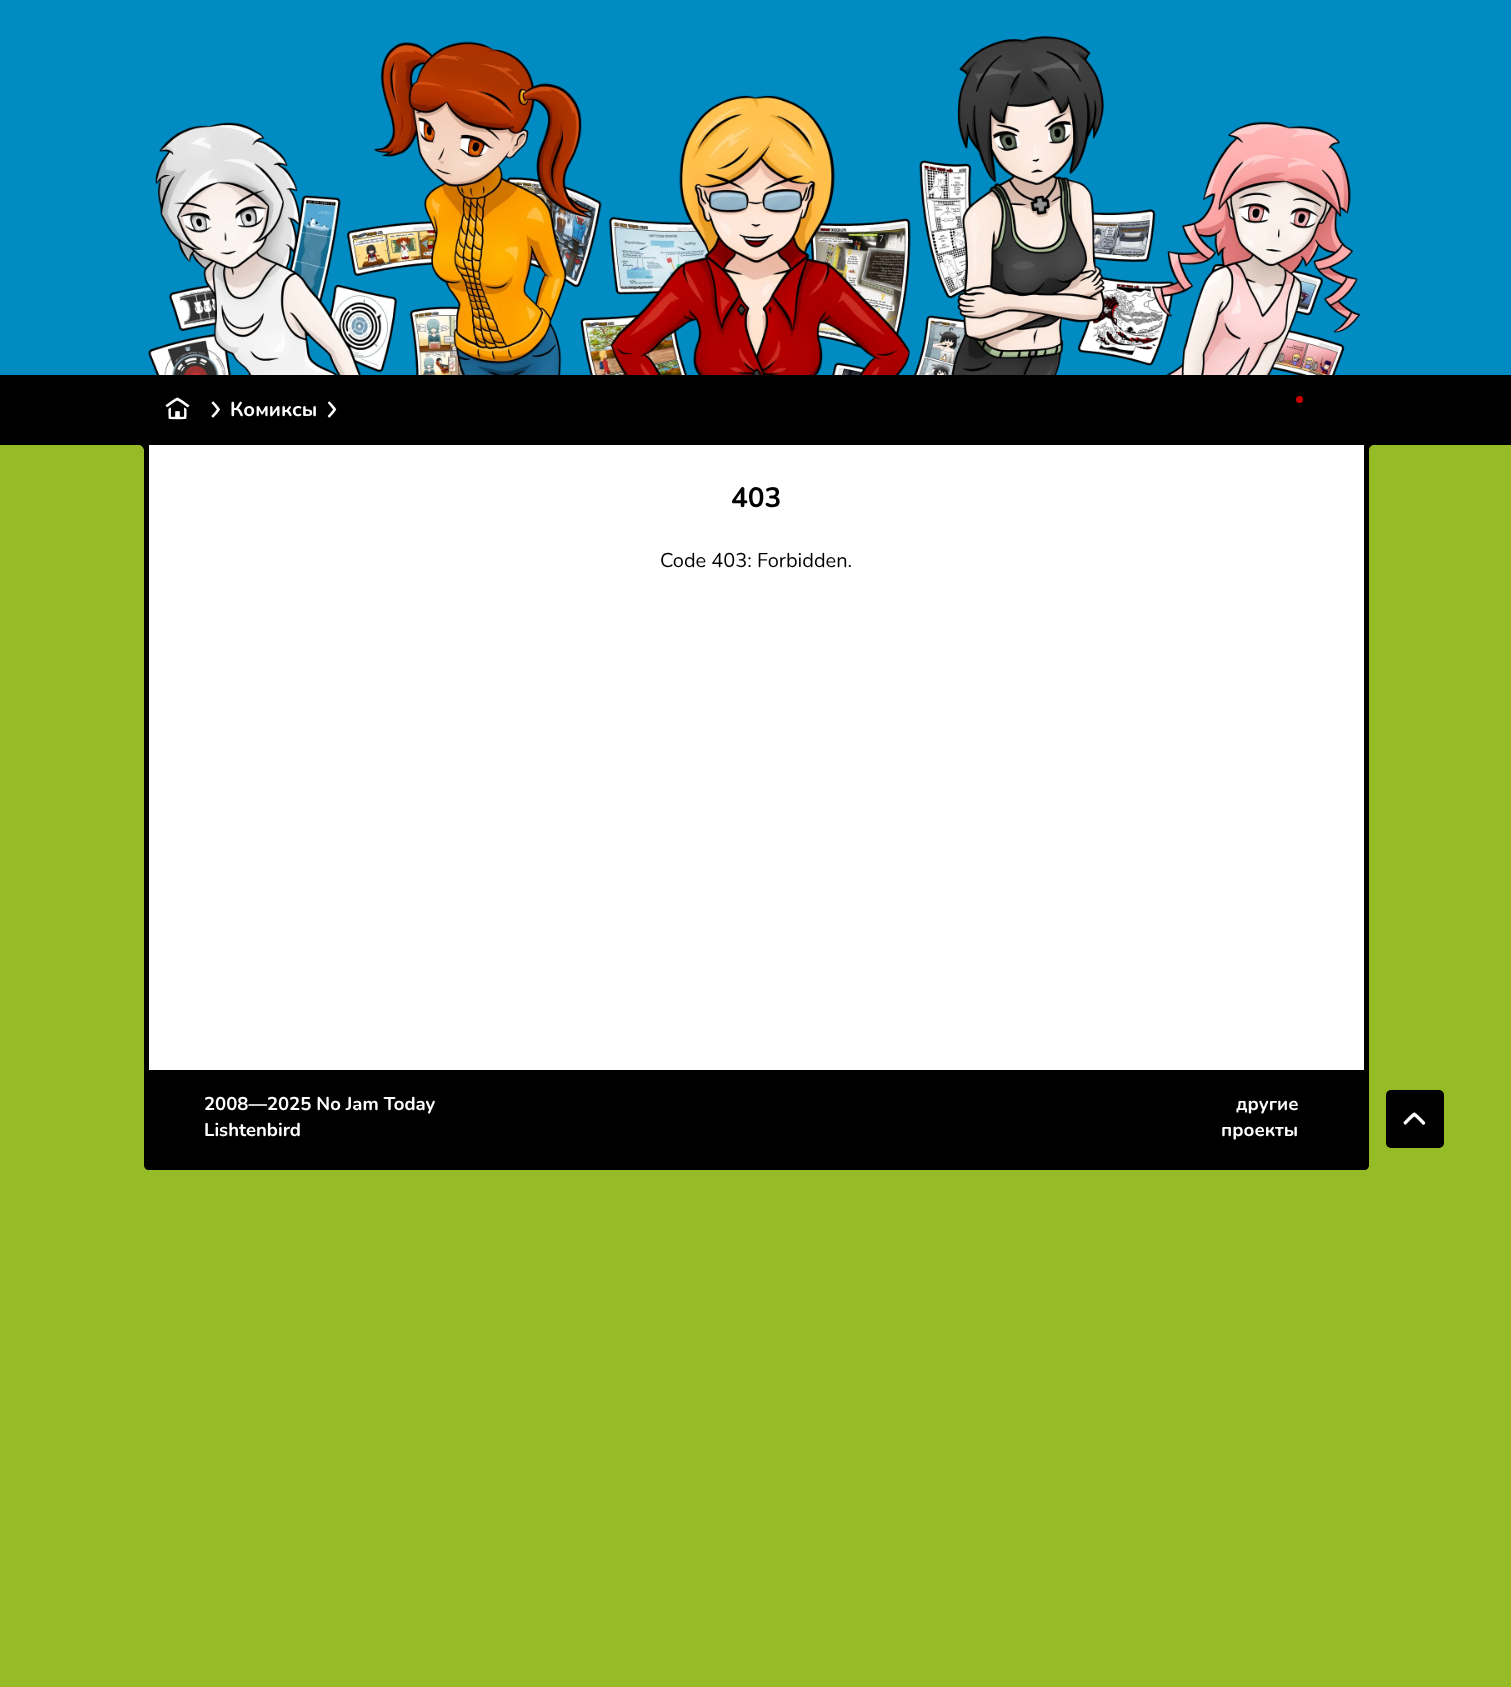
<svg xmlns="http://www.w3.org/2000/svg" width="1511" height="1687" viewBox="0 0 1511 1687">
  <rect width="100%" height="100%" fill="#95bb26"/>
  <path d="M0 0h1511v375H0z" fill="#008bc2"/>
  <image x="148" y="35" width="1213" height="340" href="img/1.png"/>
  <path d="M144 445h5v625H144z" fill="#000"/>
  <path d="M141 440V445.5C142.5 446.5 144 448 144 450H146C146 446 146.5 440 141 440Z" fill="#000"/>
  <path d="M139 440V445C141.5 445 144 447.5 144 450C144 446 144.5 440 139 440Z" fill="#000"/>
  <path d="M1364 445h5v625H1364z" fill="#000"/>
  <path d="M1371 440C1365.5 440 1366 446 1366 450H1369C1369 448.5 1369.5 446.5 1371 446Z" fill="#000"/>
  <path d="M1374 440C1369 440 1369 445 1369 448.5C1369.5 446.5 1371.5 445 1374 445V450Z" fill="#000"/>
  <path d="M0 375h1511v70H0z" fill="#000"/>
  <circle cx="1299.5" cy="399.5" r="5" fill="#c00" stroke="#000" stroke-width="3"/>
  <image x="211" y="401" width="9" height="17" href="img/2.png"/>
  <image x="165" y="397" width="25" height="23" href="img/3.png"/>
  <image x="327" y="401" width="10" height="17" href="img/4.png"/>
  <path d="M149 445h1215v625H149z" fill="#fff"/>
  <path d="M144 1070H1369V1165C1369 1168 1367 1170 1364 1170H149C146 1170 144 1168 144 1165Z" fill="#000"/>
  <rect x="1386" y="1090" width="58" height="58" rx="5" fill="#000"/>
  <image x="1403" y="1112" width="23" height="13" href="img/5.png"/>
  <text x="230" y="416" font-family="Nunito" font-size="20" font-weight="bold" fill="#fff">Комиксы</text>
  <text x="731" y="507" font-family="Nunito" font-size="28" font-weight="bold" fill="#000">403</text>
  <text x="660" y="567" font-family="Nunito" font-size="20" fill="#000">Code 403: Forbidden.</text>
  <g font-family="Nunito" font-size="18.5" font-weight="bold" fill="#fff">
    <text x="204" y="1110">2008—2025 No Jam Today</text>
    <text x="204" y="1136">Lishtenbird</text>
    <text x="1236" y="1110">другие</text>
    <text x="1221" y="1136">проекты</text>
  </g>
</svg>
